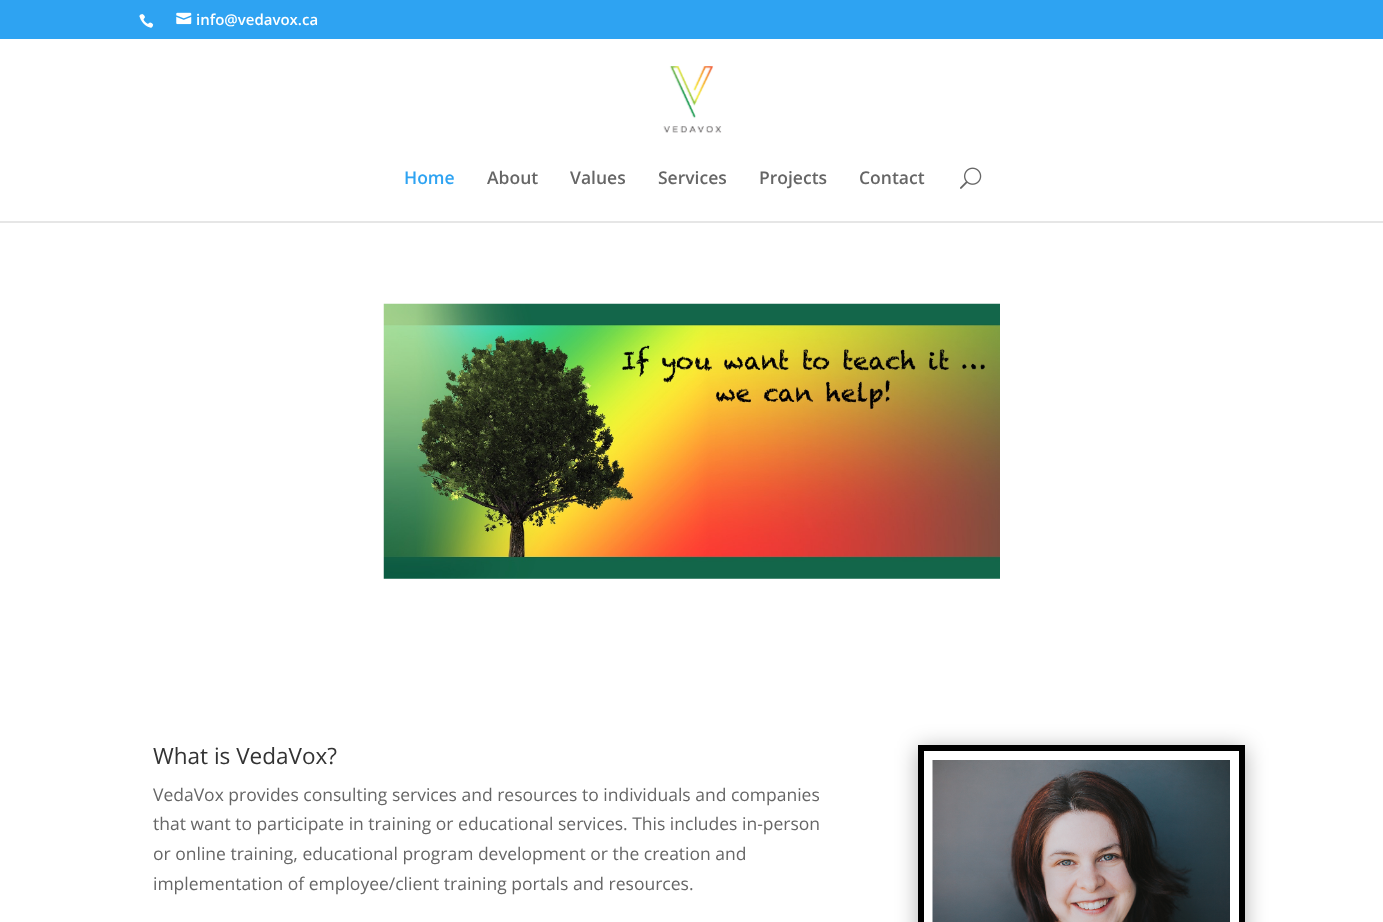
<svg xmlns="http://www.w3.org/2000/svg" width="1383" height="922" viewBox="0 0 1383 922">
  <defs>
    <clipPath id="clip1"><path d="M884 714H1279V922H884ZM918 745H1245V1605H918Z" clip-rule="evenodd"/></clipPath>
  </defs>
  <rect width="100%" height="100%" fill="#fff"/>
  <path d="M0 0h1383v39H0z" fill="#2ea3f2"/>
  <image x="139" y="14" width="15" height="14" href="img/1.png"/>
  <image x="176" y="12" width="16" height="13" href="img/2.png"/>
  <path d="M0 221V223H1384V39V221Z" fill="#e6e6e6"/>
  <image x="663" y="66" width="59" height="67" href="img/3.png"/>
  <image x="960" y="167" width="22" height="22" href="img/4.png"/>
  <image x="383" y="303" width="617" height="276" href="img/5.png"/>
  <g clip-path="url(#clip1)">
    <path d="M918 748h327v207H918z" fill="#0000004d" filter="blur(11px)"/>
  </g>
  <path d="M921 748h321v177H921z" fill="none" stroke="#000" stroke-width="6"/>
  <image x="932" y="760" width="298" height="162" href="img/6.png"/>
  <text x="196" y="25" font-family="Open Sans" font-size="15" font-weight="600" fill="#fff">info@vedavox.ca</text>
  <text x="404" y="184" font-family="Open Sans" font-size="17.5" font-weight="600" fill="#2ea3f2">Home</text>
  <g font-family="Open Sans" font-size="17.5" font-weight="600" fill="#666">
    <text x="487" y="184">About</text>
    <text x="570" y="184">Values</text>
    <text x="658" y="184">Services</text>
    <text x="759" y="184">Projects</text>
    <text x="859" y="184">Contact</text>
  </g>
  <text x="153" y="764" font-family="Open Sans" font-size="22.5" fill="#333">What is VedaVox?</text>
  <g font-family="Open Sans" font-size="17.5" fill="#666">
    <text x="153" y="801">VedaVox provides consulting services and resources to individuals and companies</text>
    <text x="153" y="830">that want to participate in training or educational services. This includes in-person</text>
    <text x="153" y="860">or online training, educational program development or the creation and</text>
    <text x="153" y="890">implementation of employee/client training portals and resources.</text>
  </g>
</svg>
